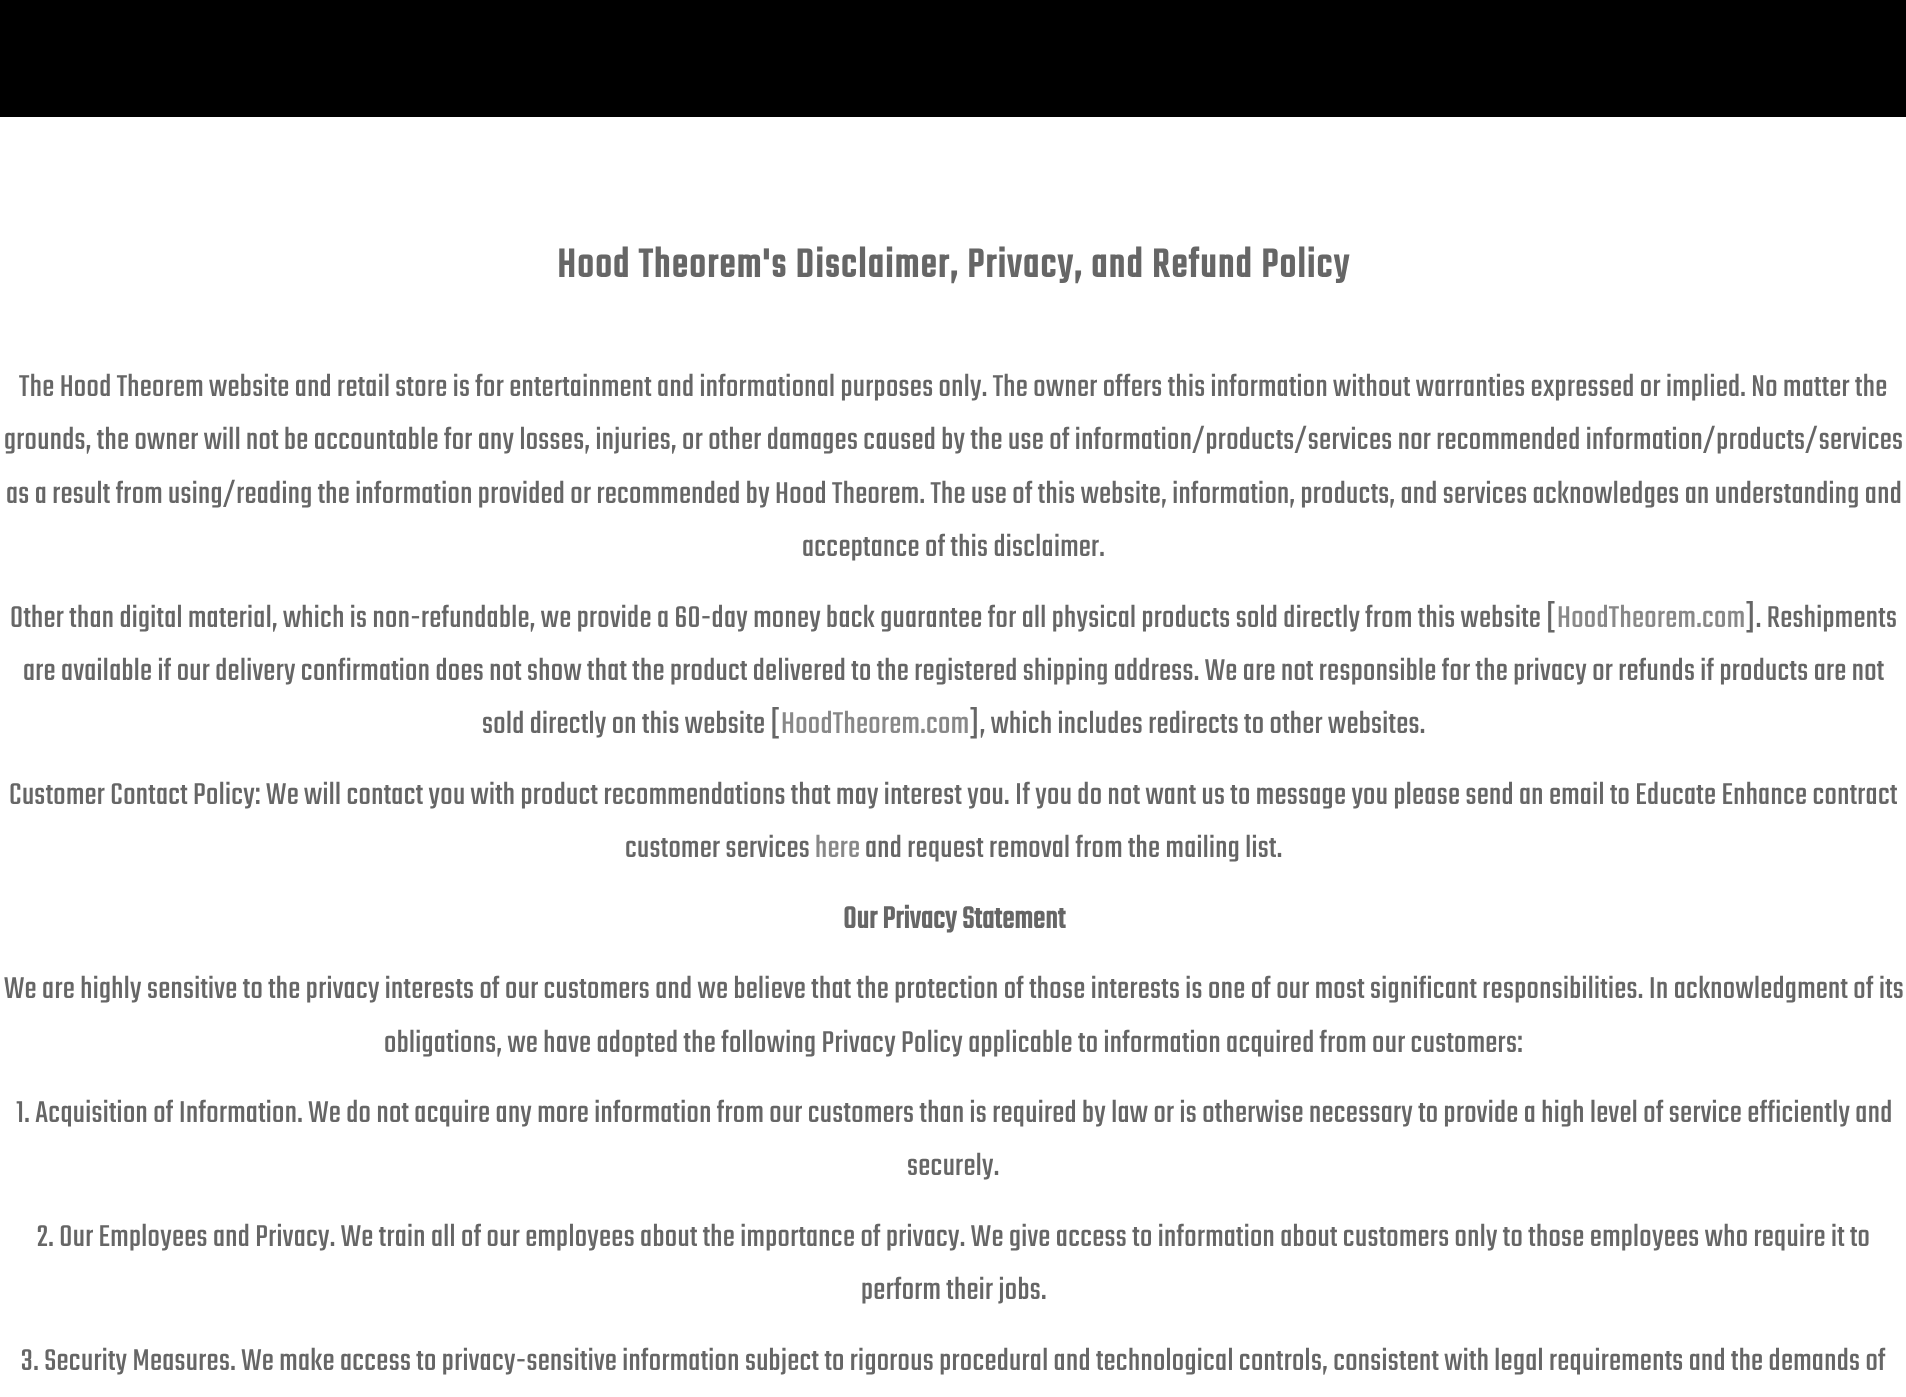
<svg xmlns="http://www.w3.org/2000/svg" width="1906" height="1397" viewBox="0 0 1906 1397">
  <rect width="100%" height="100%" fill="#fff"/>
  <path d="M0 0h1906v117H0z" fill="#000"/>
  <text x="557" y="277" font-family="Teko" font-size="43.75" font-weight="bold" letter-spacing="1.75" fill="#666">Hood Theorem's Disclaimer, Privacy, and Refund Policy</text>
  <g font-family="Teko" font-size="33.25" letter-spacing="0.35" fill="#666">
    <text x="19" y="396">The Hood Theorem website and retail store is for entertainment and informational purposes only. The owner offers this information without warranties expressed or implied. No matter the</text>
    <text x="4" y="449">grounds, the owner will not be accountable for any losses, injuries, or other damages caused by the use of information/products/services nor recommended information/products/services</text>
    <text x="6" y="503">as a result from using/reading the information provided or recommended by Hood Theorem. The use of this website, information, products, and services acknowledges an understanding and</text>
    <text x="802" y="556">acceptance of this disclaimer.</text>
    <text x="10" y="627">Other than digital material, which is non-refundable, we provide a 60-day money back guarantee for all physical products sold directly from this website [</text>
  </g>
  <text x="1557" y="627" font-family="Teko" font-size="33.25" letter-spacing="0.35" fill="#888">HoodTheorem.com</text>
  <g font-family="Teko" font-size="33.25" letter-spacing="0.35" fill="#666">
    <text x="1745" y="627">]. Reshipments</text>
    <text x="23" y="680">are available if our delivery confirmation does not show that the product delivered to the registered shipping address. We are not responsible for the privacy or refunds if products are not</text>
    <text x="482" y="733">sold directly on this website [</text>
  </g>
  <text x="781" y="733" font-family="Teko" font-size="33.25" letter-spacing="0.35" fill="#888">HoodTheorem.com</text>
  <g font-family="Teko" font-size="33.25" letter-spacing="0.35" fill="#666">
    <text x="969" y="733">], which includes redirects to other websites.</text>
    <text x="9" y="804">Customer Contact Policy: We will contact you with product recommendations that may interest you. If you do not want us to message you please send an email to Educate Enhance contract</text>
    <text x="625" y="857">customer services</text>
  </g>
  <text x="815" y="857" font-family="Teko" font-size="33.25" letter-spacing="0.35" fill="#888">here</text>
  <text x="865" y="857" font-family="Teko" font-size="33.25" letter-spacing="0.35" fill="#666">and request removal from the mailing list.</text>
  <text x="843" y="928" font-family="Teko" font-size="33.25" font-weight="bold" letter-spacing="0.35" fill="#666">Our Privacy Statement</text>
  <g font-family="Teko" font-size="33.25" letter-spacing="0.35" fill="#666">
    <text x="4" y="998">We are highly sensitive to the privacy interests of our customers and we believe that the protection of those interests is one of our most significant responsibilities. In acknowledgment of its</text>
    <text x="384" y="1052">obligations, we have adopted the following Privacy Policy applicable to information acquired from our customers:</text>
    <text x="16" y="1122">1. Acquisition of Information. We do not acquire any more information from our customers than is required by law or is otherwise necessary to provide a high level of service efficiently and</text>
    <text x="907" y="1175">securely.</text>
    <text x="37" y="1246">2. Our Employees and Privacy. We train all of our employees about the importance of privacy. We give access to information about customers only to those employees who require it to</text>
    <text x="861" y="1299">perform their jobs.</text>
    <text x="21" y="1370">3. Security Measures. We make access to privacy-sensitive information subject to rigorous procedural and technological controls, consistent with legal requirements and the demands of</text>
  </g>
</svg>
